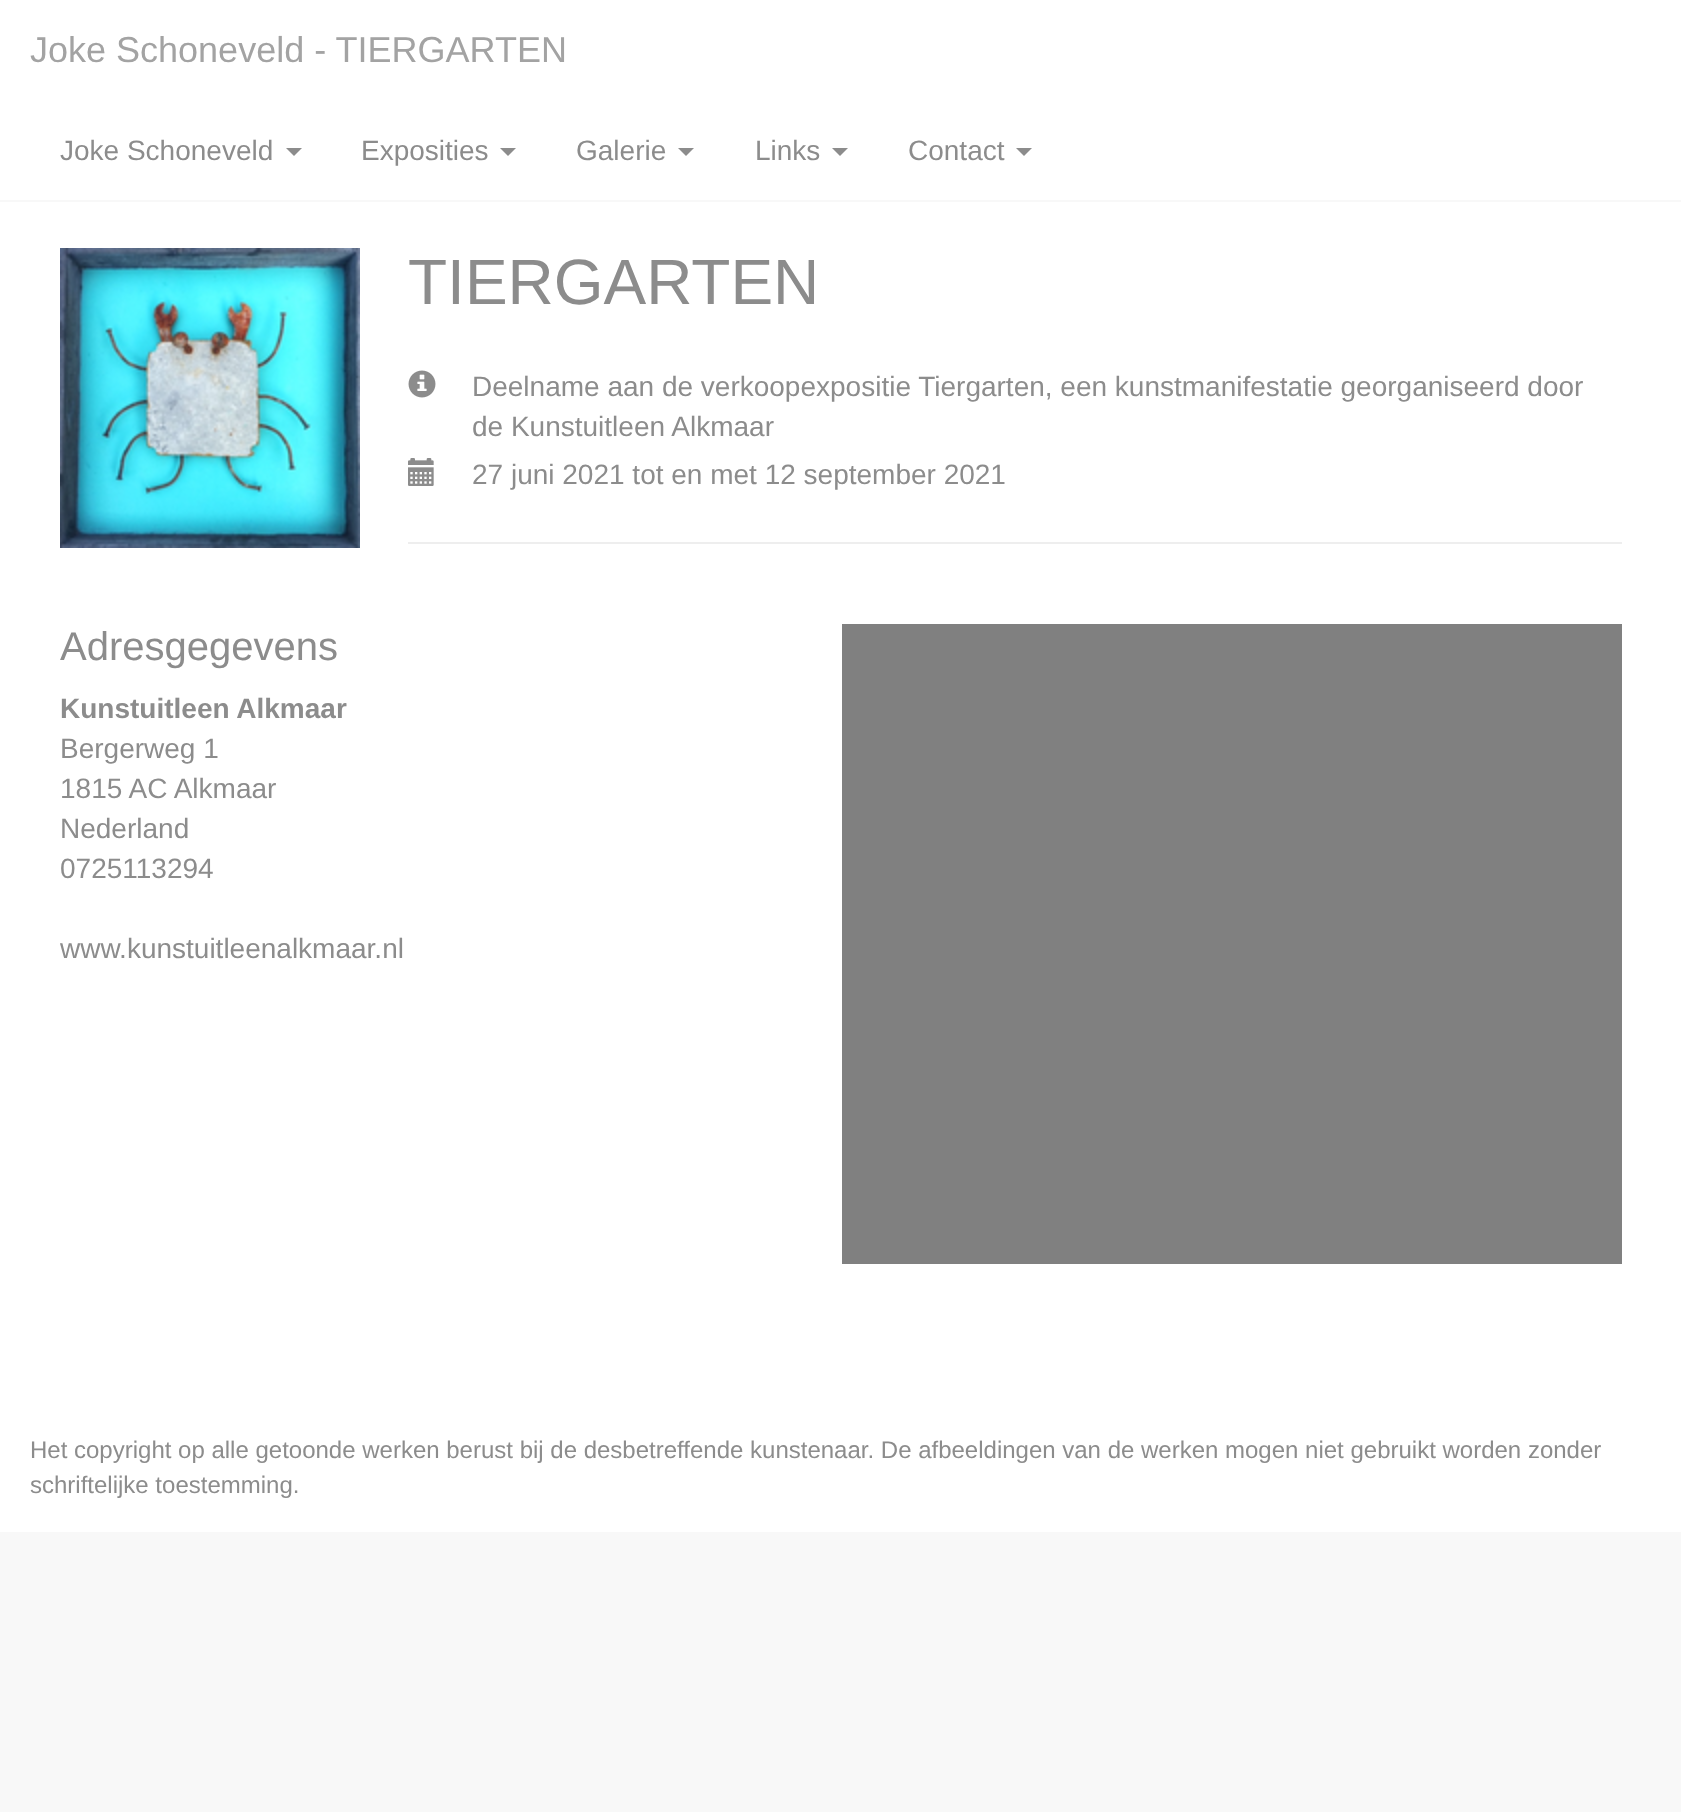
<svg xmlns="http://www.w3.org/2000/svg" width="1681" height="1812" viewBox="0 0 1681 1812">
  <rect width="100%" height="100%" fill="#f8f8f8"/>
  <path d="M0 202h1681v1330H0z" fill="#fff"/>
  <path d="M0 0h1681v200H0z" fill="#fff"/>
  <path d="M286 148H302L294 156Z" fill="#8c8c8c"/>
  <path d="M500 148H516L508 156Z" fill="#8c8c8c"/>
  <path d="M678 148H694L686 156Z" fill="#8c8c8c"/>
  <path d="M832 148H848L840 156Z" fill="#8c8c8c"/>
  <path d="M1016 148H1032L1024 156Z" fill="#8c8c8c"/>
  <image x="60" y="248" width="300" height="300" href="img/1.png"/>
  <image x="408" y="370" width="28" height="28" href="img/2.png"/>
  <image x="408" y="458" width="26" height="28" href="img/3.png"/>
  <path d="M408 542h1214v2H408z" fill="#eee"/>
  <path d="M842 624h780v640H842z" fill="#808080"/>
  <text x="30" y="62" font-family="Liberation Sans" font-size="36" fill="#a3a3a3">Joke Schoneveld - TIERGARTEN</text>
  <g font-family="Liberation Sans" font-size="28" fill="#8c8c8c">
    <text x="60" y="160">Joke Schoneveld</text>
    <text x="361" y="160">Exposities</text>
    <text x="576" y="160">Galerie</text>
    <text x="755" y="160">Links</text>
    <text x="908" y="160">Contact</text>
  </g>
  <text x="408" y="304" font-family="Liberation Sans" font-size="64" fill="#8c8c8c">TIERGARTEN</text>
  <g font-family="Liberation Sans" font-size="28" fill="#8c8c8c">
    <text x="472" y="396">Deelname aan de verkoopexpositie Tiergarten, een kunstmanifestatie georganiseerd door</text>
    <text x="472" y="436">de Kunstuitleen Alkmaar</text>
    <text x="472" y="484">27 juni 2021 tot en met 12 september 2021</text>
  </g>
  <text x="60" y="660" font-family="Liberation Sans" font-size="40" fill="#8c8c8c">Adresgegevens</text>
  <text x="60" y="718" font-family="Liberation Sans" font-size="28" font-weight="bold" fill="#8c8c8c">Kunstuitleen Alkmaar</text>
  <g font-family="Liberation Sans" font-size="28" fill="#8c8c8c">
    <text x="60" y="758">Bergerweg 1</text>
    <text x="60" y="798">1815 AC Alkmaar</text>
    <text x="60" y="838">Nederland</text>
    <text x="60" y="878">0725113294</text>
    <text x="60" y="958">www.kunstuitleenalkmaar.nl</text>
  </g>
  <g font-family="Liberation Sans" font-size="24" fill="#8c8c8c">
    <text x="30" y="1458">Het copyright op alle getoonde werken berust bij de desbetreffende kunstenaar. De afbeeldingen van de werken mogen niet gebruikt worden zonder</text>
    <text x="30" y="1493">schriftelijke toestemming.</text>
  </g>
</svg>
